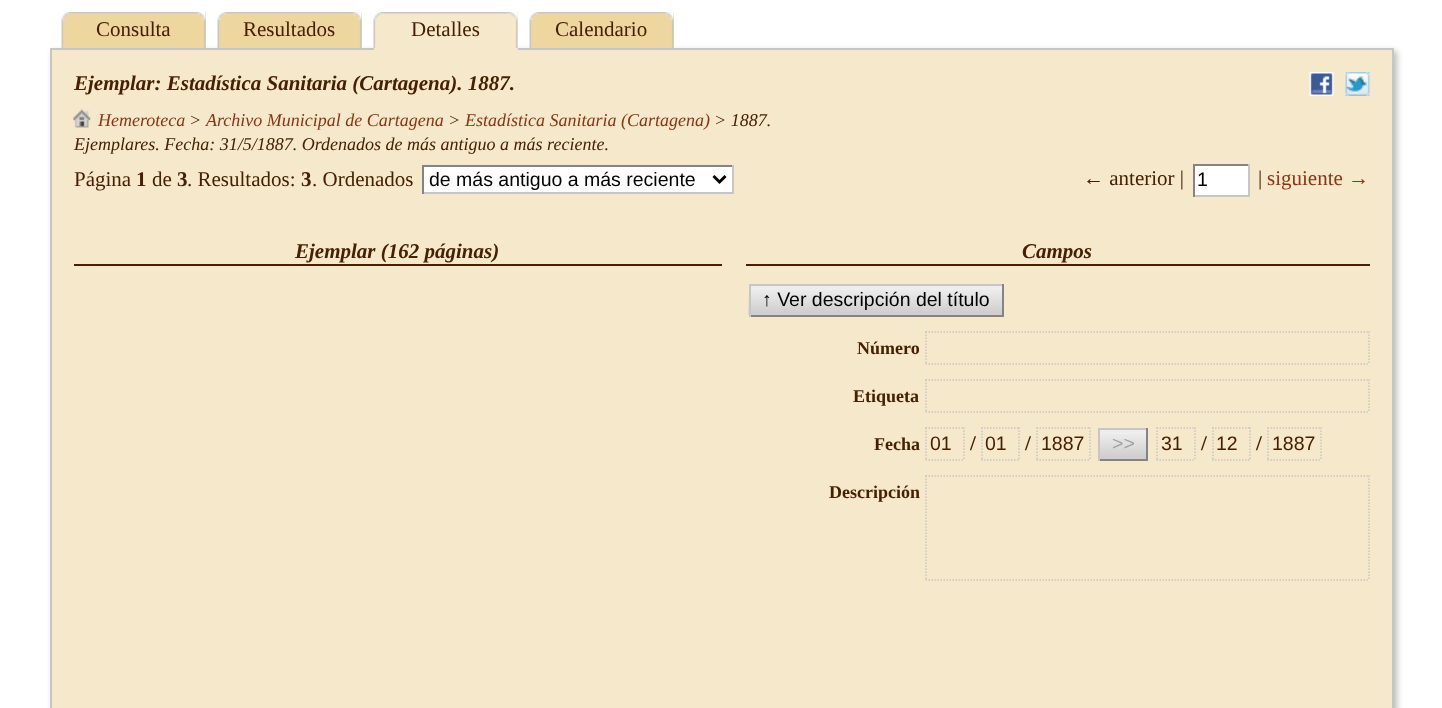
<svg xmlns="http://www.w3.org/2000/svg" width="1442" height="708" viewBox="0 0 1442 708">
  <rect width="100%" height="100%" fill="#fff"/>
  <path d="M53 51h1344v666H53z" fill="#bbb" filter="blur(3px)"/>
  <path d="M62 12h144v36H62z" fill="#eed69f"/>
  <image x="61" y="12" width="145" height="36" href="img/1.png"/>
  <path d="M218 12h144v36H218z" fill="#eed69f"/>
  <image x="217" y="12" width="145" height="36" href="img/1.png"/>
  <path d="M51 49h1342v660H51z" fill="#f6e8cb" stroke="#c6c6c6" stroke-width="2"/>
  <path d="M374 12h144v38H374z" fill="#f6e8cb"/>
  <image x="373" y="12" width="145" height="36" href="img/2.png"/>
  <path d="M530 12h144v36H530z" fill="#eed69f"/>
  <image x="529" y="12" width="145" height="36" href="img/3.png"/>
  <image x="1309" y="72" width="25" height="24" href="img/4.png"/>
  <image x="1345" y="72" width="25" height="24" href="img/5.png"/>
  <image x="73" y="109" width="18" height="19" href="img/6.png"/>
  <path d="M424 167h308v25H424z" fill="#fff"/>
  <path d="M422 165h312v2H422z" fill="#848484"/>
  <path d="M732 165h2v29H732z" fill="#c6c6c6"/>
  <path d="M422 192h312v2H422z" fill="#c6c6c6"/>
  <path d="M422 165h2v29H422z" fill="#848484"/>
  <path d="M713.5 176L719.5 182L725.5 176" fill="none" stroke="#000" stroke-width="3"/>
  <path d="M1195 166h53v29H1195z" fill="#fff"/>
  <path d="M1193 164h57v2H1193z" fill="#848484"/>
  <path d="M1248 164h2v33H1248z" fill="#c6c6c6"/>
  <path d="M1193 195h57v2H1193z" fill="#c6c6c6"/>
  <path d="M1193 164h2v33H1193z" fill="#848484"/>
  <path d="M74 264h648v2H74z" fill="#462000"/>
  <path d="M746 264h624v2H746z" fill="#462000"/>
  <image x="748" y="283" width="256" height="32" href="img/7.png"/>
  <path d="M749 284h255v2H749z" fill="#c6c6c6"/>
  <path d="M1002 284h2v33H1002z" fill="#848484"/>
  <path d="M749 315h255v2H749z" fill="#848484"/>
  <path d="M749 284h2v33H749z" fill="#c6c6c6"/>
  <path d="M925.5 332H1369.5" fill="none" stroke="#c6c6c6" stroke-width="1.5" stroke-dasharray="1.5 1.5"/>
  <path d="M1369 331.5V364.5" fill="none" stroke="#c6c6c6" stroke-width="1.5" stroke-dasharray="1.5 1.5"/>
  <path d="M925.5 364H1369.5" fill="none" stroke="#c6c6c6" stroke-width="1.5" stroke-dasharray="1.5 1.5"/>
  <path d="M926 331.5V364.5" fill="none" stroke="#c6c6c6" stroke-width="1.5" stroke-dasharray="1.5 1.5"/>
  <path d="M925.5 380H1369.5" fill="none" stroke="#c6c6c6" stroke-width="1.5" stroke-dasharray="1.5 1.5"/>
  <path d="M1369 379.5V412.5" fill="none" stroke="#c6c6c6" stroke-width="1.5" stroke-dasharray="1.5 1.5"/>
  <path d="M925.5 412H1369.5" fill="none" stroke="#c6c6c6" stroke-width="1.5" stroke-dasharray="1.5 1.5"/>
  <path d="M926 379.5V412.5M925.5 428H964.5" fill="none" stroke="#c6c6c6" stroke-width="1.5" stroke-dasharray="1.5 1.5"/>
  <path d="M964 427.5V460.5M925.5 460H964.5M926 427.5V460.5" fill="none" stroke="#c6c6c6" stroke-width="1.5" stroke-dasharray="1.5 1.5"/>
  <path d="M981 428H1020M1019 427.5V460.5M981 460H1020M982 427.5V460.5" fill="none" stroke="#c6c6c6" stroke-width="1.5" stroke-dasharray="1.5 1.5"/>
  <path d="M1036.5 428H1090.5M1090 427.5V460.5M1036.5 460H1090.5M1037 427.5V460.5" fill="none" stroke="#c6c6c6" stroke-width="1.5" stroke-dasharray="1.5 1.5"/>
  <image x="1098" y="427" width="50" height="32" href="img/8.png"/>
  <path d="M1098 428h50v2H1098z" fill="#c6c6c6"/>
  <path d="M1146 428h2v33H1146z" fill="#848484"/>
  <path d="M1098 459h50v2H1098z" fill="#848484"/>
  <path d="M1098 428h2v33H1098z" fill="#c6c6c6"/>
  <path d="M1156.5 428H1195.5M1195 427.5V460.5M1156.5 460H1195.5M1157 427.5V460.5" fill="none" stroke="#c6c6c6" stroke-width="1.5" stroke-dasharray="1.5 1.5"/>
  <path d="M1212 428H1251M1250 427.5V460.5M1212 460H1251M1213 427.5V460.5" fill="none" stroke="#c6c6c6" stroke-width="1.5" stroke-dasharray="1.5 1.5"/>
  <path d="M1267.5 428H1321.5M1321 427.5V460.5M1267.5 460H1321.5M1268 427.5V460.5" fill="none" stroke="#c6c6c6" stroke-width="1.5" stroke-dasharray="1.5 1.5"/>
  <path d="M925.5 476H1369.5" fill="none" stroke="#c6c6c6" stroke-width="1.5" stroke-dasharray="1.5 1.5"/>
  <path d="M1369 475.5V580.5" fill="none" stroke="#c6c6c6" stroke-width="1.5" stroke-dasharray="1.5 1.5"/>
  <path d="M925.5 580H1369.5" fill="none" stroke="#c6c6c6" stroke-width="1.5" stroke-dasharray="1.5 1.5"/>
  <path d="M926 475.5V580.5" fill="none" stroke="#c6c6c6" stroke-width="1.5" stroke-dasharray="1.5 1.5"/>
  <g font-family="Liberation Serif" font-size="21" fill="#462000">
    <text x="96" y="36">Consulta</text>
    <text x="243" y="36">Resultados</text>
    <text x="411" y="36">Detalles</text>
    <text x="555" y="36">Calendario</text>
  </g>
  <text x="74" y="90" font-family="Liberation Serif" font-size="21" font-weight="bold" font-style="italic" fill="#462000">Ejemplar: Estadística Sanitaria (Cartagena). 1887.</text>
  <text x="98" y="126" font-family="Liberation Serif" font-size="18" font-style="italic" fill="#8b3611">Hemeroteca</text>
  <text x="189" y="126" font-family="Liberation Serif" font-size="18" font-style="italic" fill="#462000">&gt;</text>
  <text x="206" y="126" font-family="Liberation Serif" font-size="18" font-style="italic" fill="#8b3611">Archivo Municipal de Cartagena</text>
  <text x="448" y="126" font-family="Liberation Serif" font-size="18" font-style="italic" fill="#462000">&gt;</text>
  <text x="465" y="126" font-family="Liberation Serif" font-size="18" font-style="italic" fill="#8b3611">Estadística Sanitaria (Cartagena)</text>
  <g font-family="Liberation Serif" font-size="18" font-style="italic" fill="#462000">
    <text x="714" y="126">&gt; 1887.</text>
    <text x="74" y="150">Ejemplares. Fecha: 31/5/1887. Ordenados de más antiguo a más reciente.</text>
  </g>
  <text x="74" y="186" font-family="Liberation Serif" font-size="21" fill="#462000">Página</text>
  <text x="136" y="186" font-family="Liberation Serif" font-size="21" font-weight="bold" fill="#462000">1</text>
  <text x="152" y="186" font-family="Liberation Serif" font-size="21" fill="#462000">de</text>
  <text x="177" y="186" font-family="Liberation Serif" font-size="21" font-weight="bold" fill="#462000">3</text>
  <text x="187" y="186" font-family="Liberation Serif" font-size="21" fill="#462000">. Resultados:</text>
  <text x="301" y="186" font-family="Liberation Serif" font-size="21" font-weight="bold" fill="#462000">3</text>
  <text x="312" y="186" font-family="Liberation Serif" font-size="21" fill="#462000">. Ordenados</text>
  <text x="429" y="186" font-family="Liberation Sans" font-size="19.5" fill="#000">de más antiguo a más reciente</text>
  <text x="1083" y="185" font-family="Liberation Serif" font-size="21" fill="#462000">← anterior |</text>
  <text x="1197" y="186" font-family="Liberation Sans" font-size="19.5" fill="#000">1</text>
  <text x="1258" y="185" font-family="Liberation Serif" font-size="21" fill="#462000">|</text>
  <text x="1267" y="185" font-family="Liberation Serif" font-size="21" fill="#8b3611">siguiente →</text>
  <g font-family="Liberation Serif" font-size="21" font-weight="bold" font-style="italic" fill="#462000">
    <text x="295" y="258">Ejemplar (162 páginas)</text>
    <text x="1022" y="258">Campos</text>
  </g>
  <text x="762" y="306" font-family="Liberation Sans" font-size="19.5" fill="#000">↑ Ver descripción del título</text>
  <g font-family="Liberation Serif" font-size="18" font-weight="bold" fill="#462000">
    <text x="857" y="354">Número</text>
    <text x="853" y="402">Etiqueta</text>
    <text x="874" y="450">Fecha</text>
  </g>
  <text x="930" y="450" font-family="Liberation Sans" font-size="19.5" fill="#462000">01</text>
  <text x="970" y="450" font-family="Liberation Serif" font-size="21" font-weight="bold" fill="#462000">/</text>
  <text x="985" y="450" font-family="Liberation Sans" font-size="19.5" fill="#462000">01</text>
  <text x="1025" y="450" font-family="Liberation Serif" font-size="21" font-weight="bold" fill="#462000">/</text>
  <text x="1041" y="450" font-family="Liberation Sans" font-size="19.5" fill="#462000">1887</text>
  <text x="1112" y="450" font-family="Liberation Sans" font-size="19.5" fill="#a1a2a2">&gt;&gt;</text>
  <text x="1161" y="450" font-family="Liberation Sans" font-size="19.5" fill="#462000">31</text>
  <text x="1201" y="450" font-family="Liberation Serif" font-size="21" font-weight="bold" fill="#462000">/</text>
  <text x="1216" y="450" font-family="Liberation Sans" font-size="19.5" fill="#462000">12</text>
  <text x="1256" y="450" font-family="Liberation Serif" font-size="21" font-weight="bold" fill="#462000">/</text>
  <text x="1272" y="450" font-family="Liberation Sans" font-size="19.5" fill="#462000">1887</text>
  <text x="829" y="498" font-family="Liberation Serif" font-size="18" font-weight="bold" fill="#462000">Descripción</text>
</svg>
